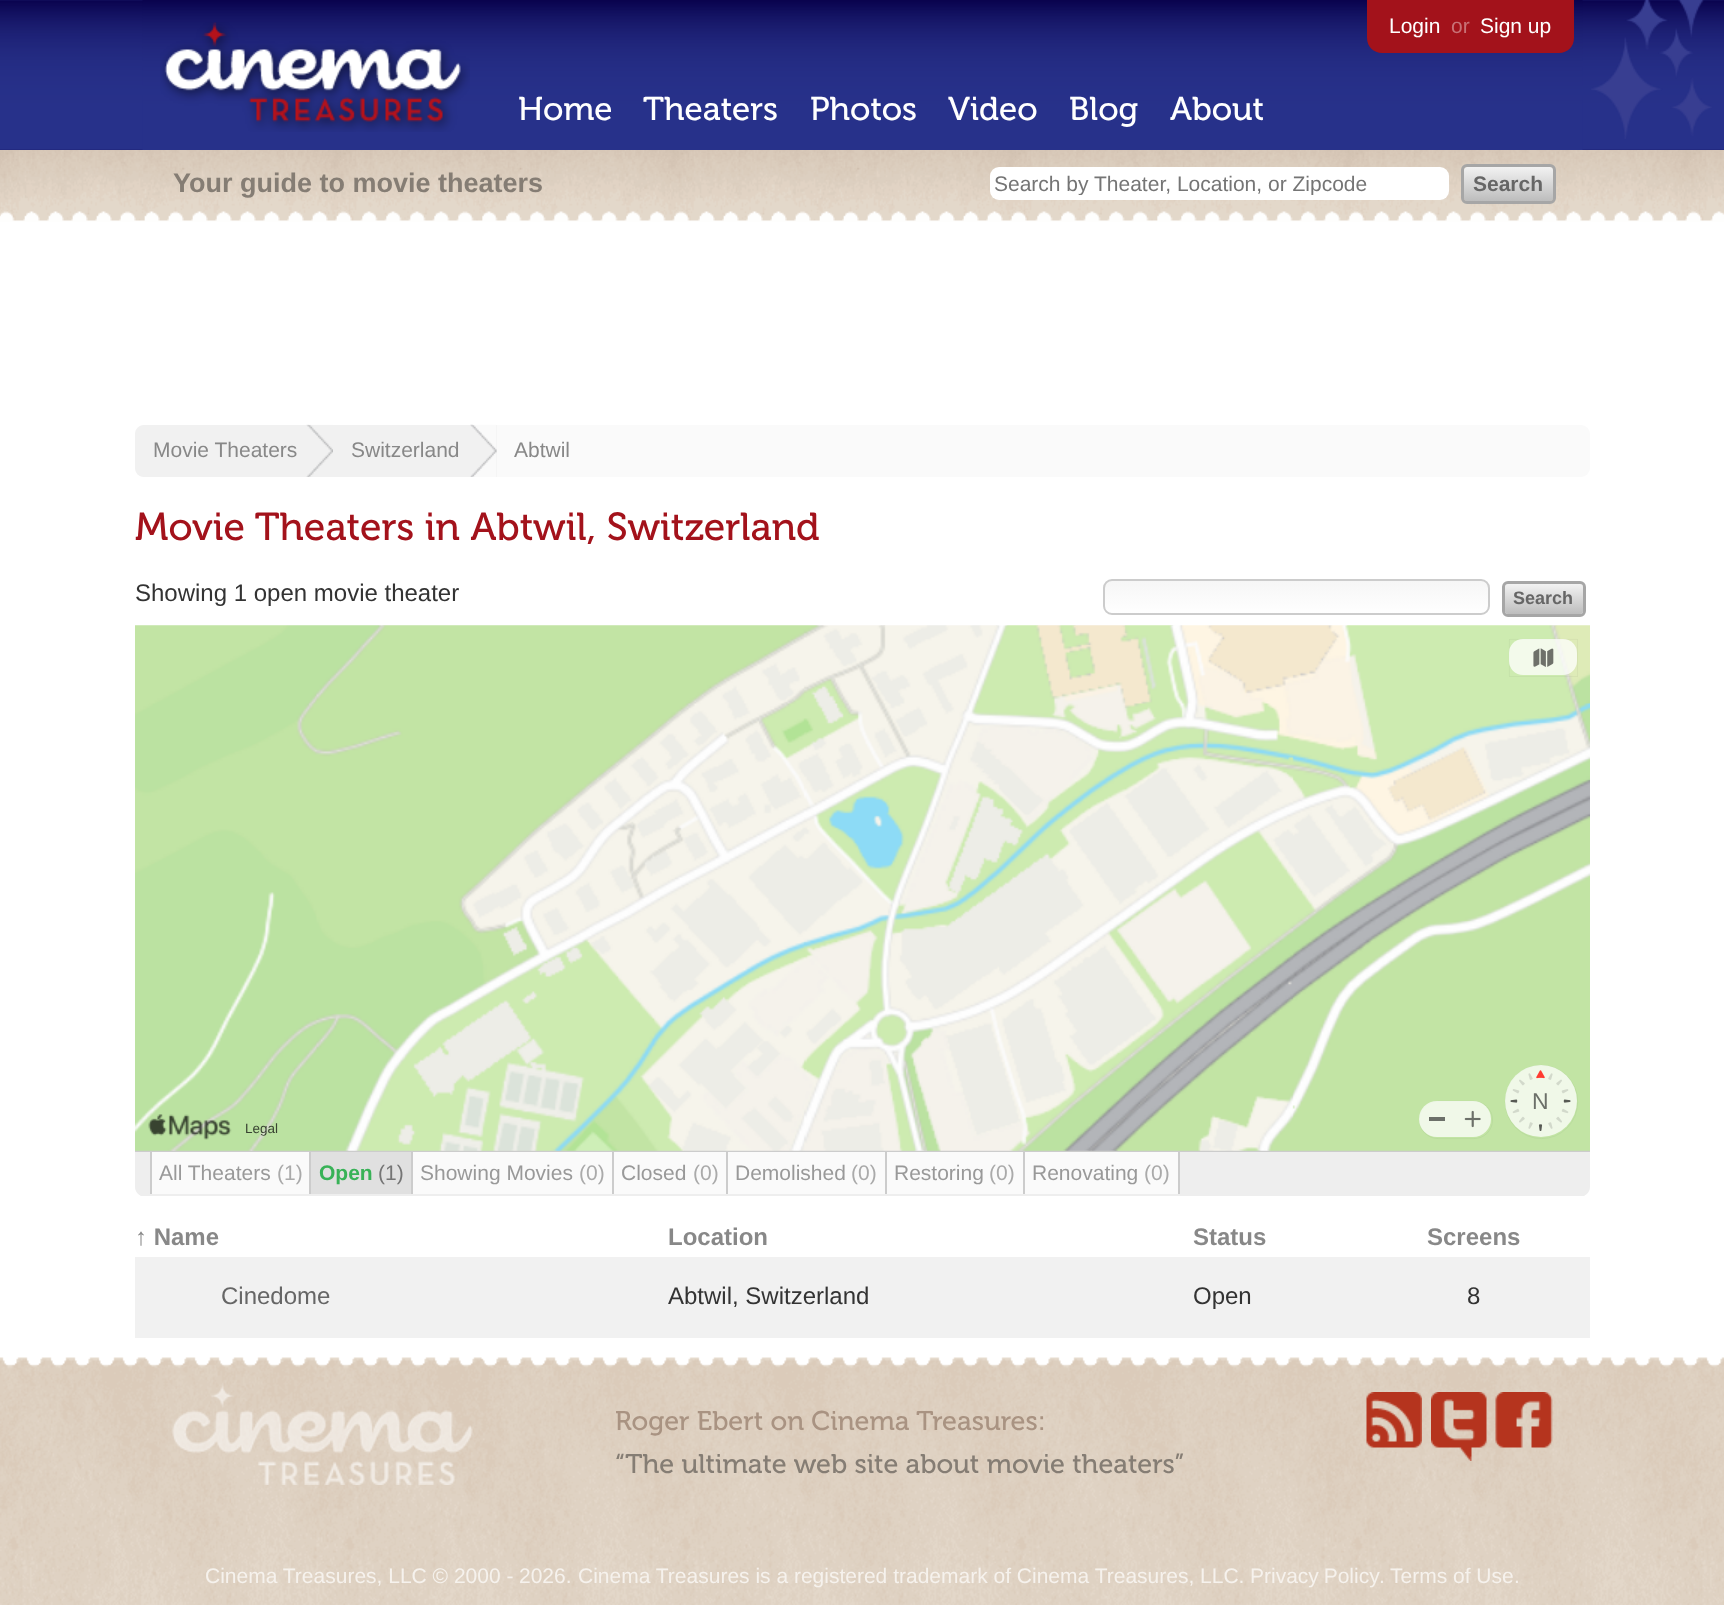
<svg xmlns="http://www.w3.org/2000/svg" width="1724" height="1605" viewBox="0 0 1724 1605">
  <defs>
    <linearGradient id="g1" gradientUnits="userSpaceOnUse" x1="1508" y1="167" x2="1508" y2="201"><stop offset="0" stop-color="#f2f2f2"/><stop offset="1" stop-color="#bdbdbd"/></linearGradient>
    <clipPath id="clip1"><rect x="1103" y="579" width="387" height="36" rx="9"/></clipPath>
    <linearGradient id="g2" gradientUnits="userSpaceOnUse" x1="1296" y1="581" x2="1296" y2="614"><stop offset="0" stop-color="#f6f6f6"/><stop offset="1" stop-color="#fff"/></linearGradient>
    <linearGradient id="g3" gradientUnits="userSpaceOnUse" x1="1544" y1="584" x2="1544" y2="614"><stop offset="0" stop-color="#f2f2f2"/><stop offset="1" stop-color="#bdbdbd"/></linearGradient>
    <clipPath id="clip2"><path d="M995 171h450v24H995z"/></clipPath>
  </defs>
  <rect width="100%" height="100%" fill="#fff"/>
  <image x="0" y="0" width="1724" height="150" href="img/1.png"/>
  <image x="142" y="0" width="1441" height="150" href="img/2.png"/>
  <image x="160" y="22" width="310" height="110" href="img/3.png"/>
  <path d="M1367 0H1574V38C1574 46.5 1567.5 53 1559 53H1382C1373.5 53 1367 46.5 1367 38Z" fill="#a3121b"/>
  <image x="1591" y="0" width="121" height="139" href="img/4.png"/>
  <image x="0" y="150" width="1724" height="72" href="img/5.png"/>
  <rect x="990" y="167" width="459" height="33" rx="9" fill="#fff"/>
  <rect x="1464" y="167" width="89" height="34" rx="3" fill="url(#g1)"/>
  <rect x="1462.5" y="165.5" width="92" height="37" rx="4.5" fill="none" stroke="#a6a6a6" stroke-width="3"/>
  <rect x="135" y="425" width="1455" height="52" rx="9" fill="#fafafa"/>
  <path d="M144 425H333V477H144C139 477 135 473 135 468V434C135 429 139 425 144 425Z" fill="#f1f1f1"/>
  <image x="306" y="424" width="27" height="53" href="img/6.png"/>
  <path d="M333 425h164v52H333z" fill="#f1f1f1"/>
  <image x="470" y="424" width="27" height="53" href="img/7.png"/>
  <g clip-path="url(#clip1)">
    <path d="M1103 581h387v33H1103z" fill="url(#g2)"/>
  </g>
  <rect x="1104" y="580" width="385" height="34" rx="8" fill="none" stroke="#ccc" stroke-width="2"/>
  <rect x="1505" y="584" width="78" height="30" rx="3" fill="url(#g3)"/>
  <rect x="1503.5" y="582.5" width="81" height="33" rx="4.5" fill="none" stroke="#a6a6a6" stroke-width="3"/>
  <path d="M135 1151H1590V1187C1590 1192 1586 1196 1581 1196H144C139 1196 135 1192 135 1187Z" fill="#eee"/>
  <path d="M135 1150h1455v2H135z" fill="#ccc"/>
  <image x="135" y="625" width="1455" height="526" href="img/8.png"/>
  <image x="135" y="625" width="1455" height="526" href="img/9.png"/>
  <path d="M1509.4 639.4h68.2v37.2H1509.4z" fill="none" stroke="#0000000d" stroke-width="0.8"/>
  <rect x="1509" y="639" width="68" height="36" rx="14" fill="#ffffffbf"/>
  <image x="1533" y="648" width="21" height="19" href="img/10.png"/>
  <rect x="1419.4" y="1101.4" width="73.2" height="37.2" rx="18.6" fill="none" stroke="#b8d99c" stroke-width="0.8"/>
  <rect x="1419" y="1101" width="72" height="36" rx="18" fill="#ffffffbf"/>
  <path d="M1429 1117h16v4H1429z" fill="#6c7069"/>
  <image x="1464" y="1110" width="17" height="18" href="img/11.png"/>
  <rect x="1505.4" y="1065.4" width="72.2" height="73.2" rx="36.1" fill="none" stroke="#b8d99c" stroke-width="0.8"/>
  <circle cx="1541" cy="1101" r="36" fill="#ffffffbf"/>
  <image x="1510" y="1070" width="61" height="61" href="img/12.png"/>
  <image x="148" y="1114" width="84" height="26" href="img/13.png"/>
  <path d="M141 1196C138 1194 135 1190 135 1186C135 1191 139 1194 144 1194H1581C1586 1194 1590 1191 1590 1186C1590 1190 1587 1194 1584 1196Z" fill="#eee"/>
  <path d="M152 1152h157v42H152z" fill="#fafafa"/>
  <path d="M309 1152h2v42H309z" fill="#ccc"/>
  <path d="M150 1152h2v42H150z" fill="#ccc"/>
  <path d="M311 1152h100v42H311z" fill="#e0e0e0"/>
  <path d="M411 1152h2v42H411z" fill="#ccc"/>
  <path d="M413 1152h199v42H413z" fill="#fafafa"/>
  <path d="M612 1152h2v42H612z" fill="#ccc"/>
  <path d="M614 1152h112v42H614z" fill="#fafafa"/>
  <path d="M726 1152h2v42H726z" fill="#ccc"/>
  <path d="M728 1152h157v42H728z" fill="#fafafa"/>
  <path d="M885 1152h2v42H885z" fill="#ccc"/>
  <path d="M887 1152h136v42H887z" fill="#fafafa"/>
  <path d="M1023 1152h2v42H1023z" fill="#ccc"/>
  <path d="M1025 1152h153v42H1025z" fill="#fafafa"/>
  <path d="M1178 1152h2v42H1178z" fill="#ccc"/>
  <path d="M135 1257h1455v81H135z" fill="#f1f1f1"/>
  <image x="0" y="1357" width="1724" height="248" href="img/14.png"/>
  <image x="172" y="1383" width="301" height="102" href="img/15.png"/>
  <image x="1366" y="1392" width="56" height="56" href="img/16.png"/>
  <image x="1431" y="1392" width="56" height="69" href="img/17.png"/>
  <image x="1495" y="1392" width="58" height="56" href="img/18.png"/>
  <g font-family="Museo" font-size="33" fill="#fff">
    <text x="518" y="120">Home</text>
    <text x="643" y="120">Theaters</text>
    <text x="810" y="120">Photos</text>
    <text x="948" y="120">Video</text>
    <text x="1069" y="120">Blog</text>
    <text x="1170" y="120">About</text>
  </g>
  <text x="1389" y="33" font-family="Liberation Sans" font-size="21" fill="#fff">Login</text>
  <text x="1451" y="33" font-family="Liberation Sans" font-size="21" fill="#c87176">or</text>
  <text x="1480" y="33" font-family="Liberation Sans" font-size="21" fill="#fff">Sign up</text>
  <text x="173" y="192" font-family="Liberation Sans" font-size="27" font-weight="bold" fill="#857d74">Your guide to movie theaters</text>
  <g clip-path="url(#clip2)">
    <text x="994" y="191" font-family="Liberation Sans" font-size="21" fill="#757575">Search by Theater, Location, or Zipcode</text>
  </g>
  <text x="1473" y="191" font-family="Liberation Sans" font-size="21" font-weight="bold" fill="#666">Search</text>
  <g font-family="Liberation Sans" font-size="21" fill="#888">
    <text x="153" y="457">Movie Theaters</text>
    <text x="351" y="457">Switzerland</text>
    <text x="514" y="457">Abtwil</text>
  </g>
  <text x="135" y="540" font-family="Museo" font-size="39" fill="#a3121b">Movie Theaters in Abtwil, Switzerland</text>
  <text x="135" y="601" font-family="Liberation Sans" font-size="24" fill="#333">Showing 1 open movie theater</text>
  <text x="1513" y="604" font-family="Liberation Sans" font-size="18" font-weight="bold" fill="#666">Search</text>
  <text x="1532" y="1109" font-family="Liberation Sans" font-size="23" fill="#6c7069">N</text>
  <text x="245" y="1133" font-family="Liberation Sans" font-size="13.5" fill="#394332">Legal</text>
  <text x="159" y="1180" font-family="Liberation Sans" font-size="21" fill="#999">All Theaters</text>
  <text x="277" y="1180" font-family="Liberation Sans" font-size="21" fill="#aaa">(1)</text>
  <text x="319" y="1180" font-family="Liberation Sans" font-size="21" font-weight="bold" fill="#38b257">Open</text>
  <text x="378" y="1180" font-family="Liberation Sans" font-size="21" fill="#757575">(1)</text>
  <text x="420" y="1180" font-family="Liberation Sans" font-size="21" fill="#999">Showing Movies</text>
  <text x="579" y="1180" font-family="Liberation Sans" font-size="21" fill="#aaa">(0)</text>
  <text x="621" y="1180" font-family="Liberation Sans" font-size="21" fill="#999">Closed</text>
  <text x="693" y="1180" font-family="Liberation Sans" font-size="21" fill="#aaa">(0)</text>
  <text x="735" y="1180" font-family="Liberation Sans" font-size="21" fill="#999">Demolished</text>
  <text x="851" y="1180" font-family="Liberation Sans" font-size="21" fill="#aaa">(0)</text>
  <text x="894" y="1180" font-family="Liberation Sans" font-size="21" fill="#999">Restoring</text>
  <text x="989" y="1180" font-family="Liberation Sans" font-size="21" fill="#aaa">(0)</text>
  <text x="1032" y="1180" font-family="Liberation Sans" font-size="21" fill="#999">Renovating</text>
  <text x="1144" y="1180" font-family="Liberation Sans" font-size="21" fill="#aaa">(0)</text>
  <g font-family="Liberation Sans" font-size="24" font-weight="bold" fill="#888">
    <text x="135" y="1245">↑ Name</text>
    <text x="668" y="1245">Location</text>
    <text x="1193" y="1245">Status</text>
    <text x="1427" y="1245">Screens</text>
  </g>
  <text x="221" y="1304" font-family="Liberation Sans" font-size="24" fill="#666">Cinedome</text>
  <g font-family="Liberation Sans" font-size="24" fill="#333">
    <text x="668" y="1304">Abtwil, Switzerland</text>
    <text x="1193" y="1304">Open</text>
    <text x="1467" y="1304">8</text>
  </g>
  <text x="615" y="1430" font-family="Museo" font-size="27" fill="#a99382">Roger Ebert on Cinema Treasures:</text>
  <text x="615" y="1473" font-family="Museo" font-size="27" fill="#857d74">“The ultimate web site about movie theaters”</text>
  <g font-family="Liberation Sans" font-size="21" fill="#f6f2ed">
    <text x="205" y="1583">Cinema Treasures, LLC © 2000 -</text>
    <text x="519" y="1583">2026.</text>
    <text x="578" y="1583">Cinema Treasures is a registered trademark of Cinema Treasures, LLC.</text>
    <text x="1250" y="1583" word-spacing="-1">Privacy Policy</text>
    <text x="1379" y="1583">.</text>
    <text x="1390" y="1583">Terms of Use</text>
    <text x="1514" y="1583">.</text>
  </g>
</svg>
